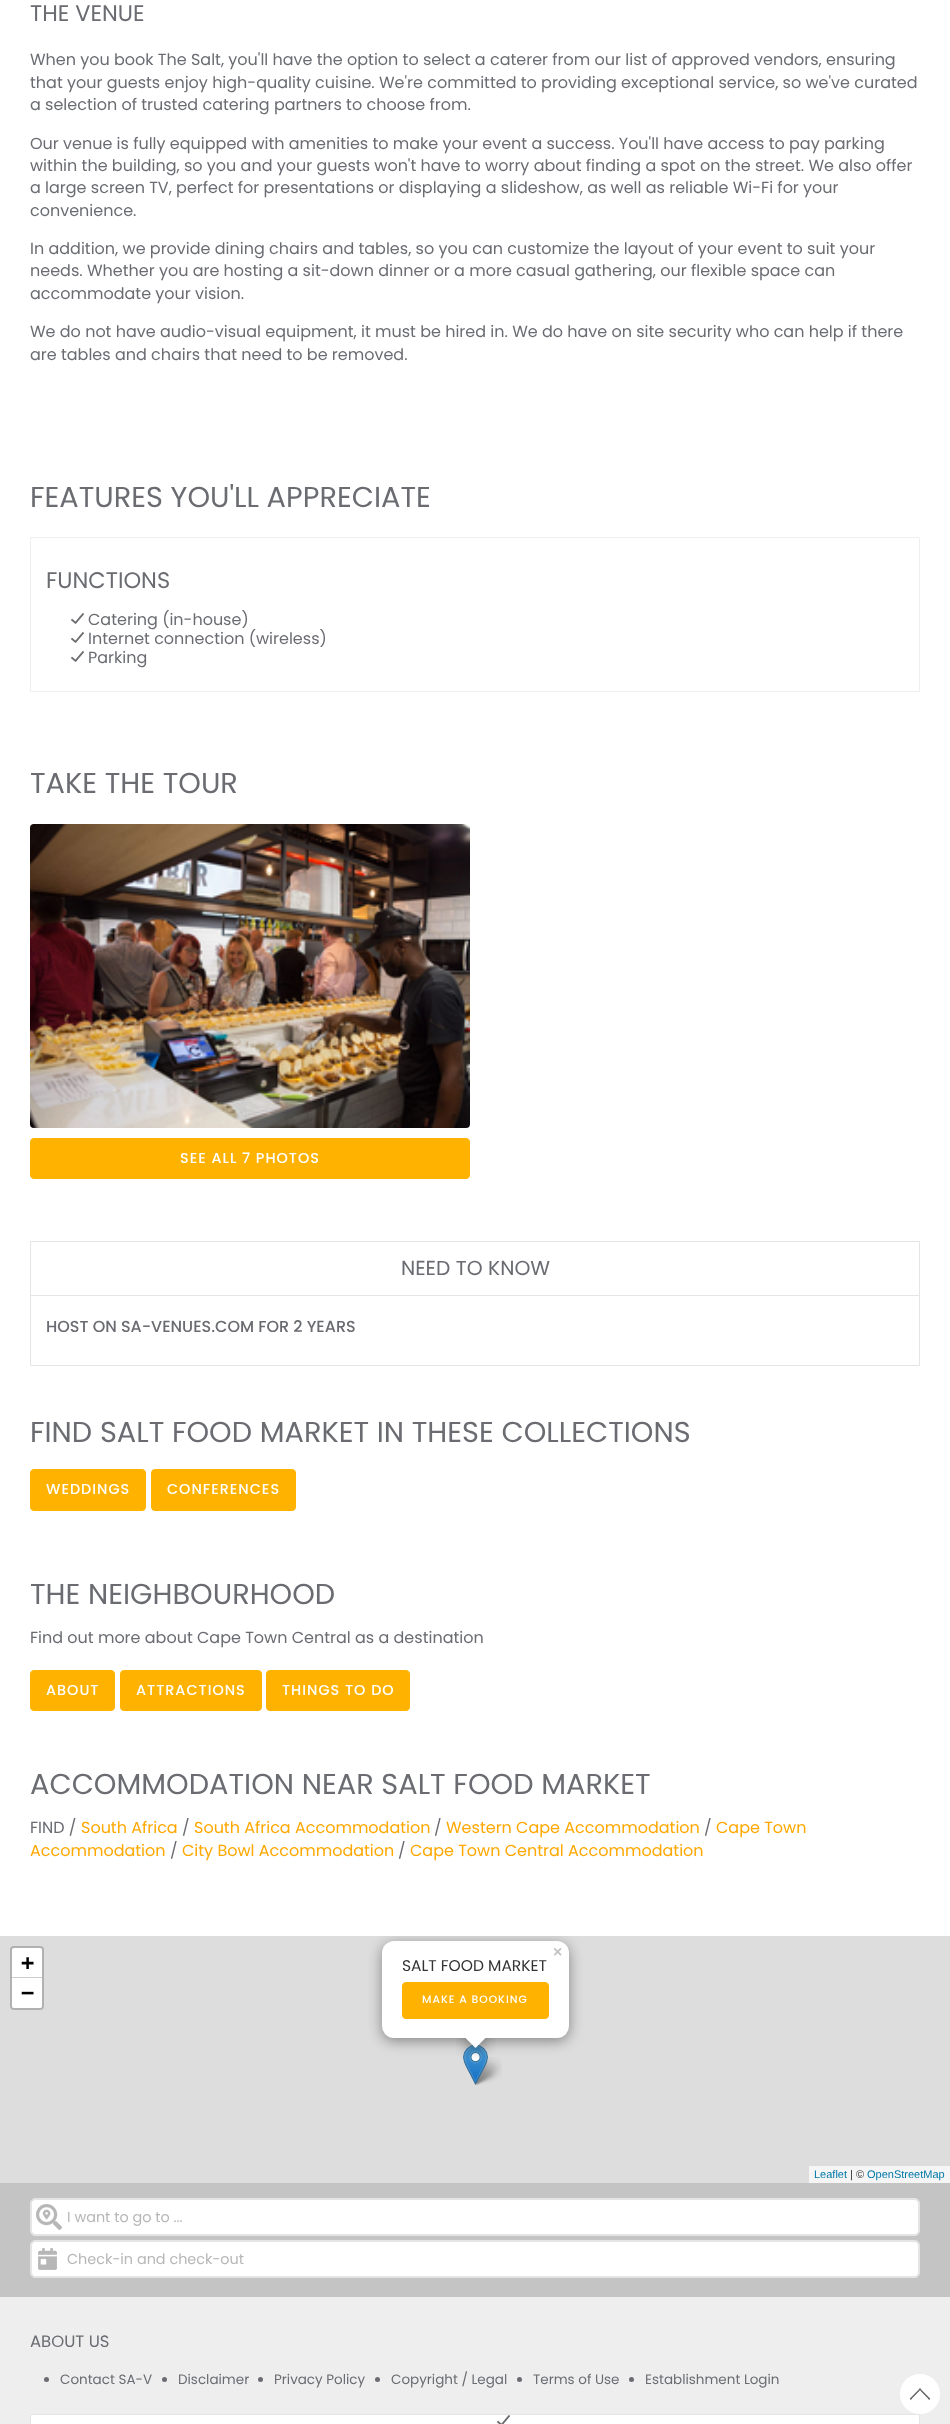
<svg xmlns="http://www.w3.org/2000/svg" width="950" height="2424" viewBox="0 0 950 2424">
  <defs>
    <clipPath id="clip1"><path d="M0 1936h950v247H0z"/></clipPath>
    <clipPath id="clip2"><path d="M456 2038h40v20H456z"/></clipPath>
    <clipPath id="clip3"><path d="M456 2038h40v20H456z"/></clipPath>
  </defs>
  <rect width="100%" height="100%" fill="#fff"/>
  <path d="M30.5 537.5h889v154H30.5z" fill="none" stroke="#eee"/>
  <image x="71" y="613" width="13" height="11" href="img/1.png"/>
  <image x="71" y="632" width="13" height="11" href="img/1.png"/>
  <image x="71" y="651" width="13" height="11" href="img/1.png"/>
  <image x="30" y="824" width="440" height="304" href="img/2.png"/>
  <rect x="30.5" y="1138.5" width="439" height="40" rx="3.5" fill="#ffb200" stroke="#ffb200"/>
  <path d="M30.5 1241.5h889v124H30.5z" fill="none" stroke="#e5e5e5"/>
  <path d="M31 1295h888v1H31z" fill="#e5e5e5"/>
  <rect x="30.5" y="1469.5" width="115" height="41" rx="3.5" fill="#ffb200" stroke="#ffb200"/>
  <rect x="151.5" y="1469.5" width="144" height="41" rx="3.5" fill="#ffb200" stroke="#ffb200"/>
  <rect x="30.5" y="1670.5" width="84" height="40" rx="3.5" fill="#ffb200" stroke="#ffb200"/>
  <rect x="120.5" y="1670.5" width="141" height="40" rx="3.5" fill="#ffb200" stroke="#ffb200"/>
  <rect x="266.5" y="1670.5" width="143" height="40" rx="3.5" fill="#ffb200" stroke="#ffb200"/>
  <path d="M0 1936h950v247H0z" fill="#ddd"/>
  <image x="473" y="2057" width="29" height="28" href="img/4.png"/>
  <image x="463" y="2045" width="25" height="40" href="img/3.png"/>
  <g clip-path="url(#clip1)">
    <rect x="382" y="1944" width="187" height="97" rx="12" fill="#00000066" filter="blur(7px)"/>
  </g>
  <rect x="382" y="1941" width="187" height="97" rx="12" fill="#fff"/>
  <rect x="402.5" y="1982.5" width="146" height="36" rx="3.5" fill="#ffb200" stroke="#ffb200"/>
  <g clip-path="url(#clip2)">
    <path d="M467 2031h17v17H467z" fill="#00000066" filter="blur(7px)"/>
  </g>
  <g clip-path="url(#clip3)">
    <path d="M475.5 2024L487.5 2036L475.5 2048L463.5 2036Z" fill="#fff"/>
  </g>
  <rect x="11" y="1947" width="32" height="62" rx="3" fill="none" stroke="#b1b1b1" stroke-width="2"/>
  <path d="M14 1948H40C41 1948 42 1949 42 1950V1978H12V1950C12 1949 13 1948 14 1948Z" fill="#fff"/>
  <path d="M12 1977h30v1H12z" fill="#ccc"/>
  <path d="M12 1978H42V2006C42 2007 41 2008 40 2008H14C13 2008 12 2007 12 2006Z" fill="#fff"/>
  <path d="M809 2166h141v17H809z" fill="#f5f5f5"/>
  <path d="M0 2183h950v114H0z" fill="#c4c4c4"/>
  <rect x="31" y="2199" width="888" height="36" rx="5" fill="none" stroke="#e5e5e5" stroke-width="2"/>
  <rect x="31" y="2199" width="888" height="36" rx="5" fill="#fff" stroke="#e5e5e5" stroke-width="2"/>
  <image x="36" y="2204" width="26" height="26" href="img/5.png"/>
  <rect x="31" y="2241" width="888" height="36" rx="5" fill="none" stroke="#e5e5e5" stroke-width="2"/>
  <rect x="31" y="2241" width="888" height="36" rx="5" fill="#fff" stroke="#e5e5e5" stroke-width="2"/>
  <image x="38" y="2248" width="19" height="22" href="img/6.png"/>
  <path d="M0 2297h950v127H0z" fill="#eee"/>
  <circle cx="46.5" cy="2379.5" r="2.5" fill="#6a6c72"/>
  <circle cx="164.5" cy="2379.5" r="2.5" fill="#6a6c72"/>
  <circle cx="260.5" cy="2379.5" r="2.5" fill="#6a6c72"/>
  <circle cx="377.5" cy="2379.5" r="2.5" fill="#6a6c72"/>
  <circle cx="519.5" cy="2379.5" r="2.5" fill="#6a6c72"/>
  <circle cx="631.5" cy="2379.5" r="2.5" fill="#6a6c72"/>
  <path d="M30.5 2414.5h889v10H30.5z" fill="#fff" stroke="#e5e5e5"/>
  <image x="497" y="2415" width="13" height="9" href="img/7.png"/>
  <image x="900" y="2374" width="40" height="40" href="img/8.png"/>
  <text x="30" y="21" font-family="Poppins" font-size="22.5" fill="#6a6c72">THE VENUE</text>
  <g font-family="Poppins" font-size="16" fill="#6a6c72">
    <text x="30" y="65">When you book The Salt, you'll have the option to select a caterer from our list of approved vendors, ensuring</text>
    <text x="30" y="88">that your guests enjoy high-quality cuisine. We're committed to providing exceptional service, so we've curated</text>
    <text x="30" y="110">a selection of trusted catering partners to choose from.</text>
    <text x="30" y="149">Our venue is fully equipped with amenities to make your event a success. You'll have access to pay parking</text>
    <text x="30" y="171">within the building, so you and your guests won't have to worry about finding a spot on the street. We also offer</text>
    <text x="30" y="193">a large screen TV, perfect for presentations or displaying a slideshow, as well as reliable Wi-Fi for your</text>
    <text x="30" y="216">convenience.</text>
    <text x="30" y="254">In addition, we provide dining chairs and tables, so you can customize the layout of your event to suit your</text>
    <text x="30" y="276">needs. Whether you are hosting a sit-down dinner or a more casual gathering, our flexible space can</text>
    <text x="30" y="299">accommodate your vision.</text>
    <text x="30" y="337">We do not have audio-visual equipment, it must be hired in. We do have on site security who can help if there</text>
    <text x="30" y="360">are tables and chairs that need to be removed.</text>
  </g>
  <text x="30" y="507" font-family="Poppins" font-size="28.8" fill="#6a6c72">FEATURES YOU'LL APPRECIATE</text>
  <text x="46" y="588" font-family="Poppins" font-size="22.5" fill="#6a6c72">FUNCTIONS</text>
  <g font-family="Poppins" font-size="16" fill="#6a6c72">
    <text x="88" y="625">Catering (in-house)</text>
    <text x="88" y="644">Internet connection (wireless)</text>
    <text x="88" y="663">Parking</text>
  </g>
  <text x="30" y="793" font-family="Poppins" font-size="28.8" fill="#6a6c72">TAKE THE TOUR</text>
  <text x="180" y="1163" font-family="Poppins" font-size="14.4" font-weight="500" letter-spacing="1" fill="#fff">SEE ALL 7 PHOTOS</text>
  <text x="401" y="1275" font-family="Poppins" font-size="20.25" fill="#6a6c72">NEED TO KNOW</text>
  <text x="46" y="1332" font-family="Poppins" font-size="16" font-weight="500" fill="#6a6c72">HOST ON SA-VENUES.COM FOR 2 YEARS</text>
  <text x="30" y="1442" font-family="Poppins" font-size="28.8" fill="#6a6c72">FIND SALT FOOD MARKET IN THESE COLLECTIONS</text>
  <g font-family="Poppins" font-size="14.4" font-weight="500" letter-spacing="1" fill="#fff">
    <text x="46" y="1494">WEDDINGS</text>
    <text x="167" y="1494">CONFERENCES</text>
  </g>
  <text x="30" y="1604" font-family="Poppins" font-size="28.8" fill="#6a6c72">THE NEIGHBOURHOOD</text>
  <text x="30" y="1643" font-family="Poppins" font-size="16" fill="#6a6c72">Find out more about Cape Town Central as a destination</text>
  <g font-family="Poppins" font-size="14.4" font-weight="500" letter-spacing="1" fill="#fff">
    <text x="46" y="1695">ABOUT</text>
    <text x="136" y="1695">ATTRACTIONS</text>
    <text x="282" y="1695">THINGS TO DO</text>
  </g>
  <text x="30" y="1794" font-family="Poppins" font-size="28.8" fill="#6a6c72">ACCOMMODATION NEAR SALT FOOD MARKET</text>
  <text x="30" y="1833" font-family="Poppins" font-size="16" fill="#6a6c72">FIND /</text>
  <text x="81" y="1833" font-family="Poppins" font-size="16" fill="#ffa800">South Africa</text>
  <text x="182" y="1833" font-family="Poppins" font-size="16" fill="#6a6c72">/</text>
  <text x="194" y="1833" font-family="Poppins" font-size="16" fill="#ffa800">South Africa Accommodation</text>
  <text x="434" y="1833" font-family="Poppins" font-size="16" fill="#6a6c72">/</text>
  <text x="446" y="1833" font-family="Poppins" font-size="16" fill="#ffa800">Western Cape Accommodation</text>
  <text x="704" y="1833" font-family="Poppins" font-size="16" fill="#6a6c72">/</text>
  <g font-family="Poppins" font-size="16" fill="#ffa800">
    <text x="716" y="1833">Cape Town</text>
    <text x="30" y="1856">Accommodation</text>
  </g>
  <text x="170" y="1856" font-family="Poppins" font-size="16" fill="#6a6c72">/</text>
  <text x="182" y="1856" font-family="Poppins" font-size="16" fill="#ffa800">City Bowl Accommodation</text>
  <text x="398" y="1856" font-family="Poppins" font-size="16" fill="#6a6c72">/</text>
  <text x="410" y="1856" font-family="Poppins" font-size="16" fill="#ffa800">Cape Town Central Accommodation</text>
  <text x="553" y="1957" font-family="Liberation Sans" font-size="16" font-weight="bold" fill="#c3c3c3">×</text>
  <text x="402" y="1971" font-family="Poppins" font-size="15.5" fill="#333">SALT FOOD MARKET</text>
  <text x="422" y="2003" font-family="Poppins" font-size="10.75" font-weight="500" letter-spacing="1" fill="#fff">MAKE A BOOKING</text>
  <g font-family="DejaVu Sans Mono" font-size="22" font-weight="bold" fill="#000">
    <text x="21" y="1970">+</text>
    <text x="21" y="2000">−</text>
  </g>
  <text x="814" y="2178" font-family="Liberation Sans" font-size="11" fill="#0078a8">Leaflet</text>
  <text x="850" y="2178" font-family="Liberation Sans" font-size="11" fill="#333">| ©</text>
  <text x="867" y="2178" font-family="Liberation Sans" font-size="11" fill="#0078a8">OpenStreetMap</text>
  <g font-family="Poppins" font-size="14.4" fill="#b7b7b7">
    <text x="67" y="2222">I want to go to ...</text>
    <text x="67" y="2264">Check-in and check-out</text>
  </g>
  <text x="30" y="2347" font-family="Poppins" font-size="16.5" fill="#6a6c72">ABOUT US</text>
  <g font-family="Poppins" font-size="13.5" fill="#6a6c72">
    <text x="60" y="2384">Contact SA-V</text>
    <text x="178" y="2384">Disclaimer</text>
    <text x="274" y="2384">Privacy Policy</text>
    <text x="391" y="2384">Copyright / Legal</text>
    <text x="533" y="2384">Terms of Use</text>
    <text x="645" y="2384">Establishment Login</text>
  </g>
</svg>
